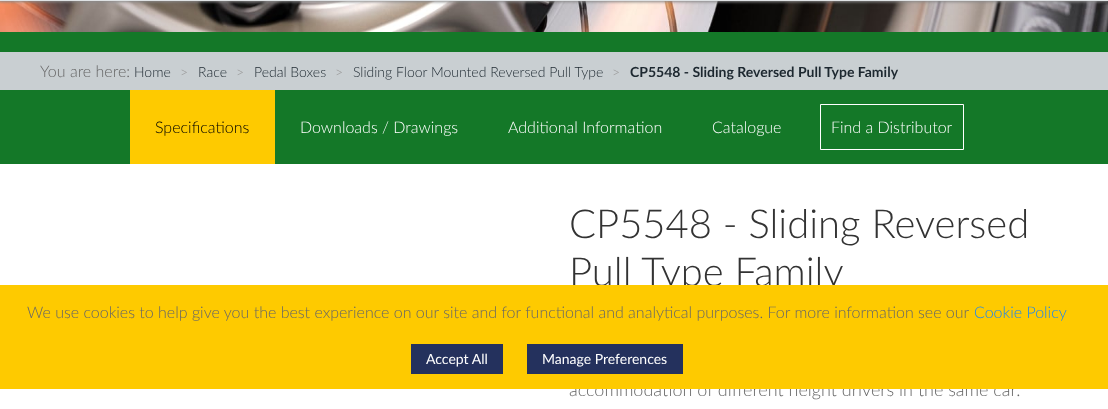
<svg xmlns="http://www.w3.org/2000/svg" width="1108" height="409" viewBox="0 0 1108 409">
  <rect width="100%" height="100%" fill="#fff"/>
  <image x="0" y="1" width="1108" height="31" href="img/1.png"/>
  <path d="M-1 -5h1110v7H-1z" fill="#888" filter="blur(1.5px)"/>
  <path d="M0 0h1108v1H0z" fill="#dfe2e4"/>
  <path d="M0 32h1108v20H0z" fill="#147828"/>
  <path d="M0 52h1108v38H0z" fill="#c9cfd2"/>
  <path d="M0 90h1108v74H0z" fill="#147828"/>
  <path d="M130 90h145v74H130z" fill="#feca00"/>
  <path d="M820.5 104.5h143v45H820.5z" fill="none" stroke="#fff"/>
  <text x="40" y="77" font-family="Lato" font-size="16" font-weight="300" fill="#666">You are here:</text>
  <text x="134" y="77" font-family="Lato" font-size="14" font-weight="300" fill="#1d2830">Home</text>
  <text x="180" y="77" font-family="Lato" font-size="14" font-weight="300" fill="#999">&gt;</text>
  <text x="198" y="77" font-family="Lato" font-size="14" font-weight="300" fill="#1d2830">Race</text>
  <text x="236" y="77" font-family="Lato" font-size="14" font-weight="300" fill="#999">&gt;</text>
  <text x="254" y="77" font-family="Lato" font-size="14" font-weight="300" fill="#1d2830">Pedal Boxes</text>
  <text x="335" y="77" font-family="Lato" font-size="14" font-weight="300" fill="#999">&gt;</text>
  <text x="353" y="77" font-family="Lato" font-size="14" font-weight="300" fill="#1d2830">Sliding Floor Mounted Reversed Pull Type</text>
  <text x="612" y="77" font-family="Lato" font-size="14" font-weight="300" fill="#999">&gt;</text>
  <text x="630" y="77" font-family="Lato" font-size="14" font-weight="bold" fill="#1d2830">CP5548 - Sliding Reversed Pull Type Family</text>
  <text x="155" y="133" font-family="Lato" font-size="16" font-weight="300" fill="#000">Specifications</text>
  <g font-family="Lato" font-size="16" font-weight="300" fill="#fff">
    <text x="300" y="133">Downloads / Drawings</text>
    <text x="508" y="133">Additional Information</text>
    <text x="712" y="133">Catalogue</text>
    <text x="831" y="133">Find a Distributor</text>
  </g>
  <g font-family="Lato" font-size="40" font-weight="300" fill="#333">
    <text x="569" y="238">CP5548 - Sliding Reversed</text>
    <text x="569" y="286">Pull Type Family</text>
  </g>
  <text x="569" y="396" font-family="Lato" font-size="18" font-weight="300" fill="#666">accommodation of different height drivers in the same car.</text>
  <path d="M0 285h1108v104H0z" fill="#feca00"/>
  <text x="27" y="318" font-family="Lato" font-size="16" font-weight="300" fill="#666">We use cookies to help give you the best experience on our site and for functional and analytical purposes. For more information see our</text>
  <text x="974" y="318" font-family="Lato" font-size="16" font-weight="300" fill="#1e87f0">Cookie Policy</text>
  <path d="M411 344h92v30H411z" fill="#24315d"/>
  <text x="426" y="364" font-family="Lato" font-size="14" fill="#fff">Accept All</text>
  <path d="M527 344h156v30H527z" fill="#24315d"/>
  <text x="542" y="364" font-family="Lato" font-size="14" fill="#fff">Manage Preferences</text>
</svg>
